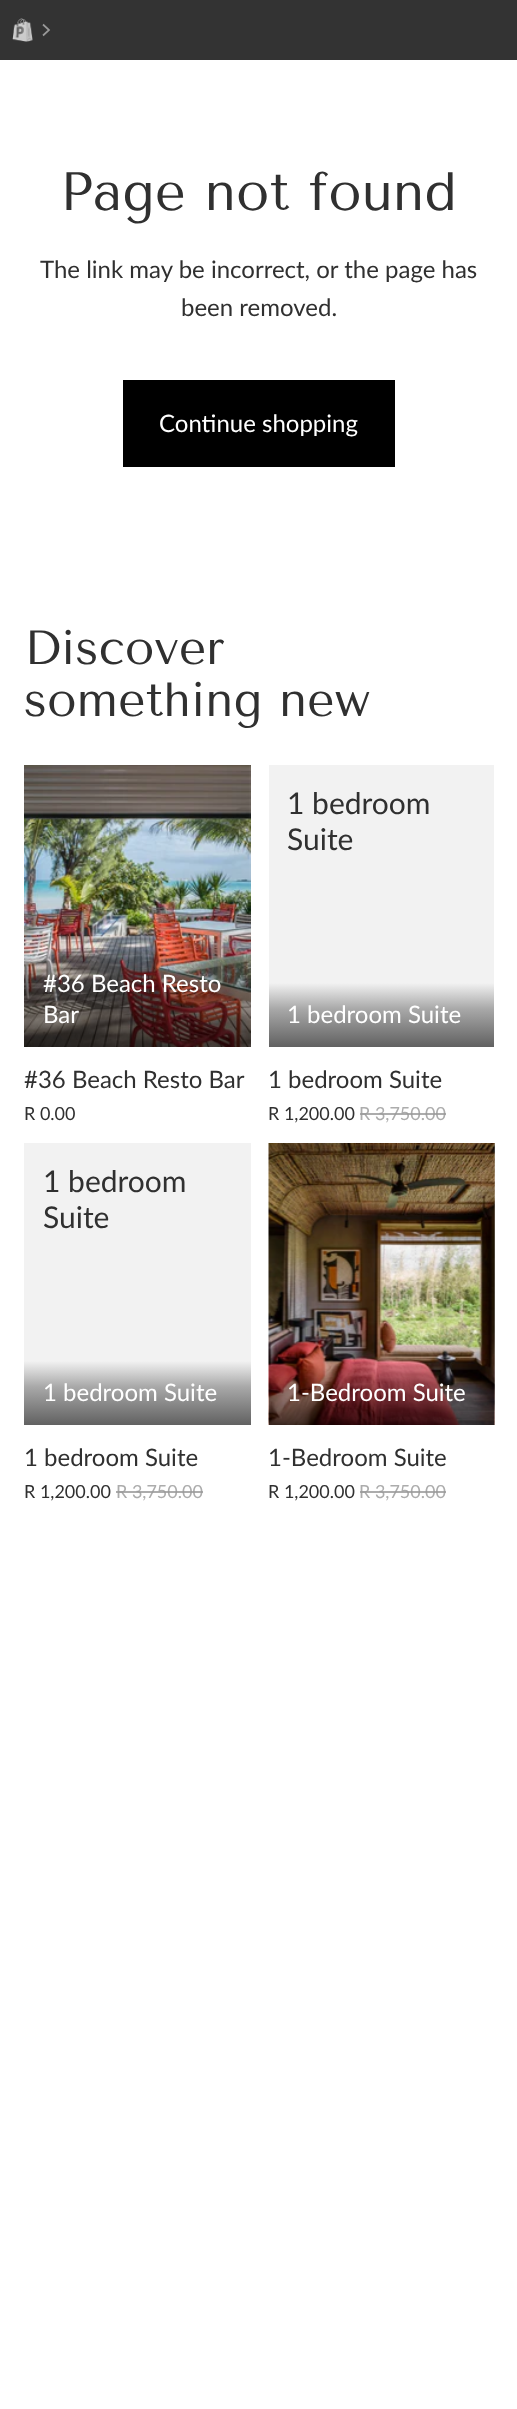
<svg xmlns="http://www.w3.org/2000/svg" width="517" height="2409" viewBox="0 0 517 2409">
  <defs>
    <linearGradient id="g1" gradientUnits="userSpaceOnUse" x1="137" y1="1047" x2="137" y2="951"><stop offset="0" stop-color="#000" stop-opacity="0.6"/><stop offset="0.6" stop-color="#000" stop-opacity="0.3"/><stop offset="1" stop-color="#000" stop-opacity="0"/></linearGradient>
    <linearGradient id="g2" gradientUnits="userSpaceOnUse" x1="381" y1="1047" x2="381" y2="983"><stop offset="0" stop-color="#616161"/><stop offset="0.6" stop-color="#a9a9a9"/><stop offset="1" stop-color="#f2f2f2"/></linearGradient>
    <linearGradient id="g3" gradientUnits="userSpaceOnUse" x1="137" y1="1425" x2="137" y2="1361"><stop offset="0" stop-color="#616161"/><stop offset="0.6" stop-color="#a9a9a9"/><stop offset="1" stop-color="#f2f2f2"/></linearGradient>
  </defs>
  <rect width="100%" height="100%" fill="#fff"/>
  <path d="M0 0h517v60H0z" fill="#333"/>
  <image x="12" y="18" width="21" height="24" href="img/1.png"/>
  <path d="M43 24.5L49 30L43 35.5" fill="none" stroke="#999" stroke-width="1.7"/>
  <path d="M123 380h272v87H123z" fill="#000"/>
  <image x="24" y="765" width="227" height="282" href="img/2.png"/>
  <path d="M24 954h227v93H24z" fill="url(#g1)"/>
  <path d="M269 765h225v218H269z" fill="#f2f2f2"/>
  <path d="M269 983h225v64H269z" fill="url(#g2)"/>
  <path d="M24 1143h227v218H24z" fill="#f2f2f2"/>
  <path d="M24 1361h227v64H24z" fill="url(#g3)"/>
  <image x="268" y="1143" width="227" height="282" href="img/3.png"/>
  <text x="60" y="210" font-family="Tenor Sans" font-size="54" fill="#303030">Page not found</text>
  <g font-family="Lato" font-size="24" fill="#303030">
    <text x="40" y="278">The link may be incorrect, or the page has</text>
    <text x="181" y="316">been removed.</text>
  </g>
  <text x="159" y="432" font-family="Lato" font-size="24" fill="#fff">Continue shopping</text>
  <g font-family="Tenor Sans" font-size="48" fill="#303030">
    <text x="24" y="664">Discover</text>
    <text x="24" y="716">something new</text>
  </g>
  <g font-family="Lato" font-size="24" fill="#fff">
    <text x="43" y="992">#36 Beach Resto</text>
    <text x="43" y="1023">Bar</text>
  </g>
  <text x="24" y="1088" font-family="Lato" font-size="24" fill="#303030">#36 Beach Resto Bar</text>
  <text x="24" y="1120" font-family="Lato" font-size="18" fill="#303030">R 0.00</text>
  <g font-family="Lato" font-size="30" fill="#303030">
    <text x="287" y="814">1 bedroom</text>
    <text x="287" y="850">Suite</text>
  </g>
  <text x="287" y="1023" font-family="Lato" font-size="24" fill="#fff">1 bedroom Suite</text>
  <text x="268" y="1088" font-family="Lato" font-size="24" fill="#303030">1 bedroom Suite</text>
  <text x="268" y="1120" font-family="Lato" font-size="18" fill="#303030">R 1,200.00</text>
  <text x="359" y="1120" font-family="Lato" font-size="18" fill="#acacac">R 3,750.00</text>
  <path d="M360 1113h86v2H360z" fill="#999999cf"/>
  <g font-family="Lato" font-size="30" fill="#303030">
    <text x="43" y="1192">1 bedroom</text>
    <text x="43" y="1228">Suite</text>
  </g>
  <text x="43" y="1401" font-family="Lato" font-size="24" fill="#fff">1 bedroom Suite</text>
  <text x="24" y="1466" font-family="Lato" font-size="24" fill="#303030">1 bedroom Suite</text>
  <text x="24" y="1498" font-family="Lato" font-size="18" fill="#303030">R 1,200.00</text>
  <text x="116" y="1498" font-family="Lato" font-size="18" fill="#acacac">R 3,750.00</text>
  <path d="M116 1491h87v2H116z" fill="#999999cf"/>
  <text x="287" y="1401" font-family="Lato" font-size="24" fill="#fff">1-Bedroom Suite</text>
  <text x="268" y="1466" font-family="Lato" font-size="24" fill="#303030">1-Bedroom Suite</text>
  <text x="268" y="1498" font-family="Lato" font-size="18" fill="#303030">R 1,200.00</text>
  <text x="359" y="1498" font-family="Lato" font-size="18" fill="#acacac">R 3,750.00</text>
  <path d="M360 1491h86v2H360z" fill="#999999cf"/>
</svg>
